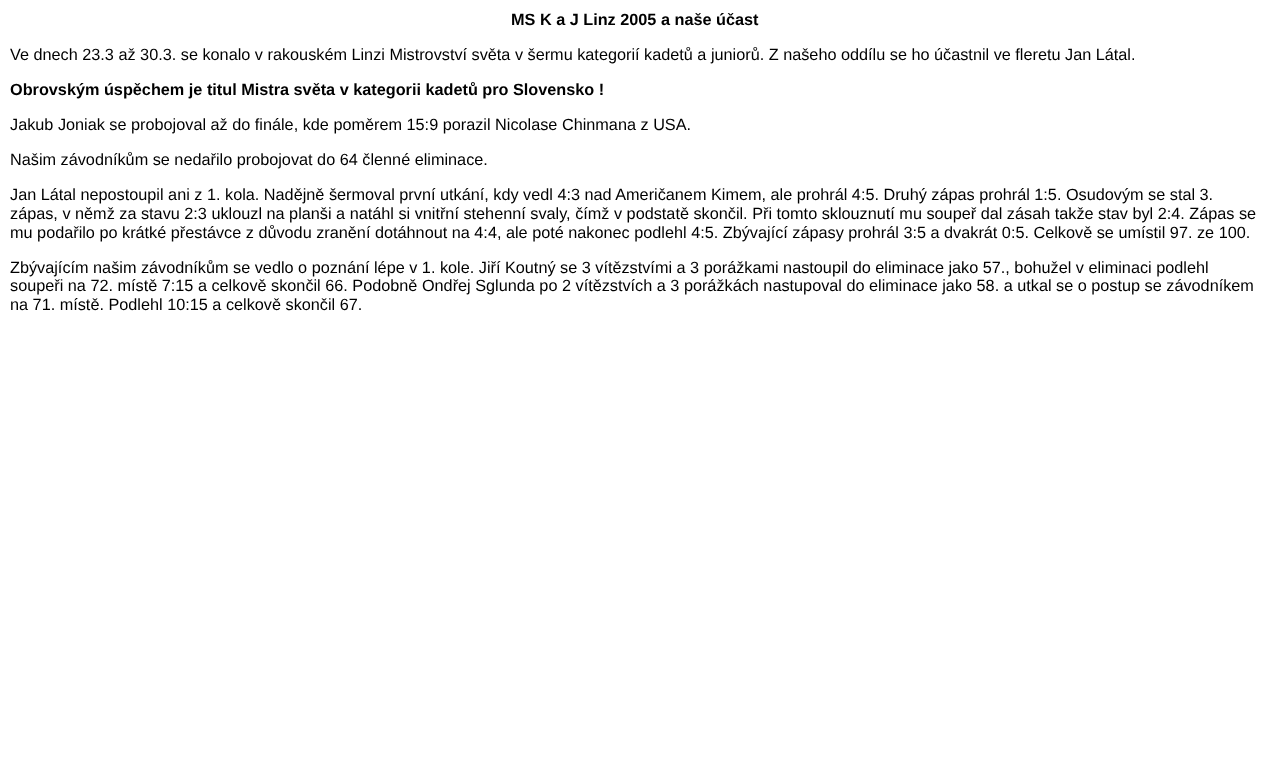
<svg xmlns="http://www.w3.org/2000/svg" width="1270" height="767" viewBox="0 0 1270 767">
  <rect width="100%" height="100%" fill="#fff"/>
  <text x="511" y="25" font-family="Liberation Sans" font-size="16.25" font-weight="bold" fill="#000">MS K a J Linz 2005 a naše účast</text>
  <text x="10" y="60" font-family="Liberation Sans" font-size="16.25" fill="#000">Ve dnech 23.3 až 30.3. se konalo v rakouském Linzi Mistrovství světa v šermu kategorií kadetů a juniorů. Z našeho oddílu se ho účastnil ve fleretu Jan Látal.</text>
  <text x="10" y="95" font-family="Liberation Sans" font-size="16.25" font-weight="bold" fill="#000">Obrovským úspěchem je titul Mistra světa v kategorii kadetů pro Slovensko !</text>
  <g font-family="Liberation Sans" font-size="16.25" fill="#000">
    <text x="10" y="130">Jakub Joniak se probojoval až do finále, kde poměrem 15:9 porazil Nicolase Chinmana z USA.</text>
    <text x="10" y="165">Našim závodníkům se nedařilo probojovat do 64 členné eliminace.</text>
    <text x="10" y="200">Jan Látal nepostoupil ani z 1. kola. Nadějně šermoval první utkání, kdy vedl 4:3 nad Američanem Kimem, ale prohrál 4:5. Druhý zápas prohrál 1:5. Osudovým se stal 3.</text>
    <text x="10" y="219">zápas, v němž za stavu 2:3 uklouzl na planši a natáhl si vnitřní stehenní svaly, čímž v podstatě skončil. Při tomto sklouznutí mu soupeř dal zásah takže stav byl 2:4. Zápas se</text>
    <text x="10" y="238">mu podařilo po krátké přestávce z důvodu zranění dotáhnout na 4:4, ale poté nakonec podlehl 4:5. Zbývající zápasy prohrál 3:5 a dvakrát 0:5. Celkově se umístil 97. ze 100.</text>
    <text x="10" y="273">Zbývajícím našim závodníkům se vedlo o poznání lépe v 1. kole. Jiří Koutný se 3 vítězstvími a 3 porážkami nastoupil do eliminace jako 57., bohužel v eliminaci podlehl</text>
    <text x="10" y="291">soupeři na 72. místě 7:15 a celkově skončil 66. Podobně Ondřej Sglunda po 2 vítězstvích a 3 porážkách nastupoval do eliminace jako 58. a utkal se o postup se závodníkem</text>
    <text x="10" y="310">na 71. místě. Podlehl 10:15 a celkově skončil 67.</text>
  </g>
</svg>
